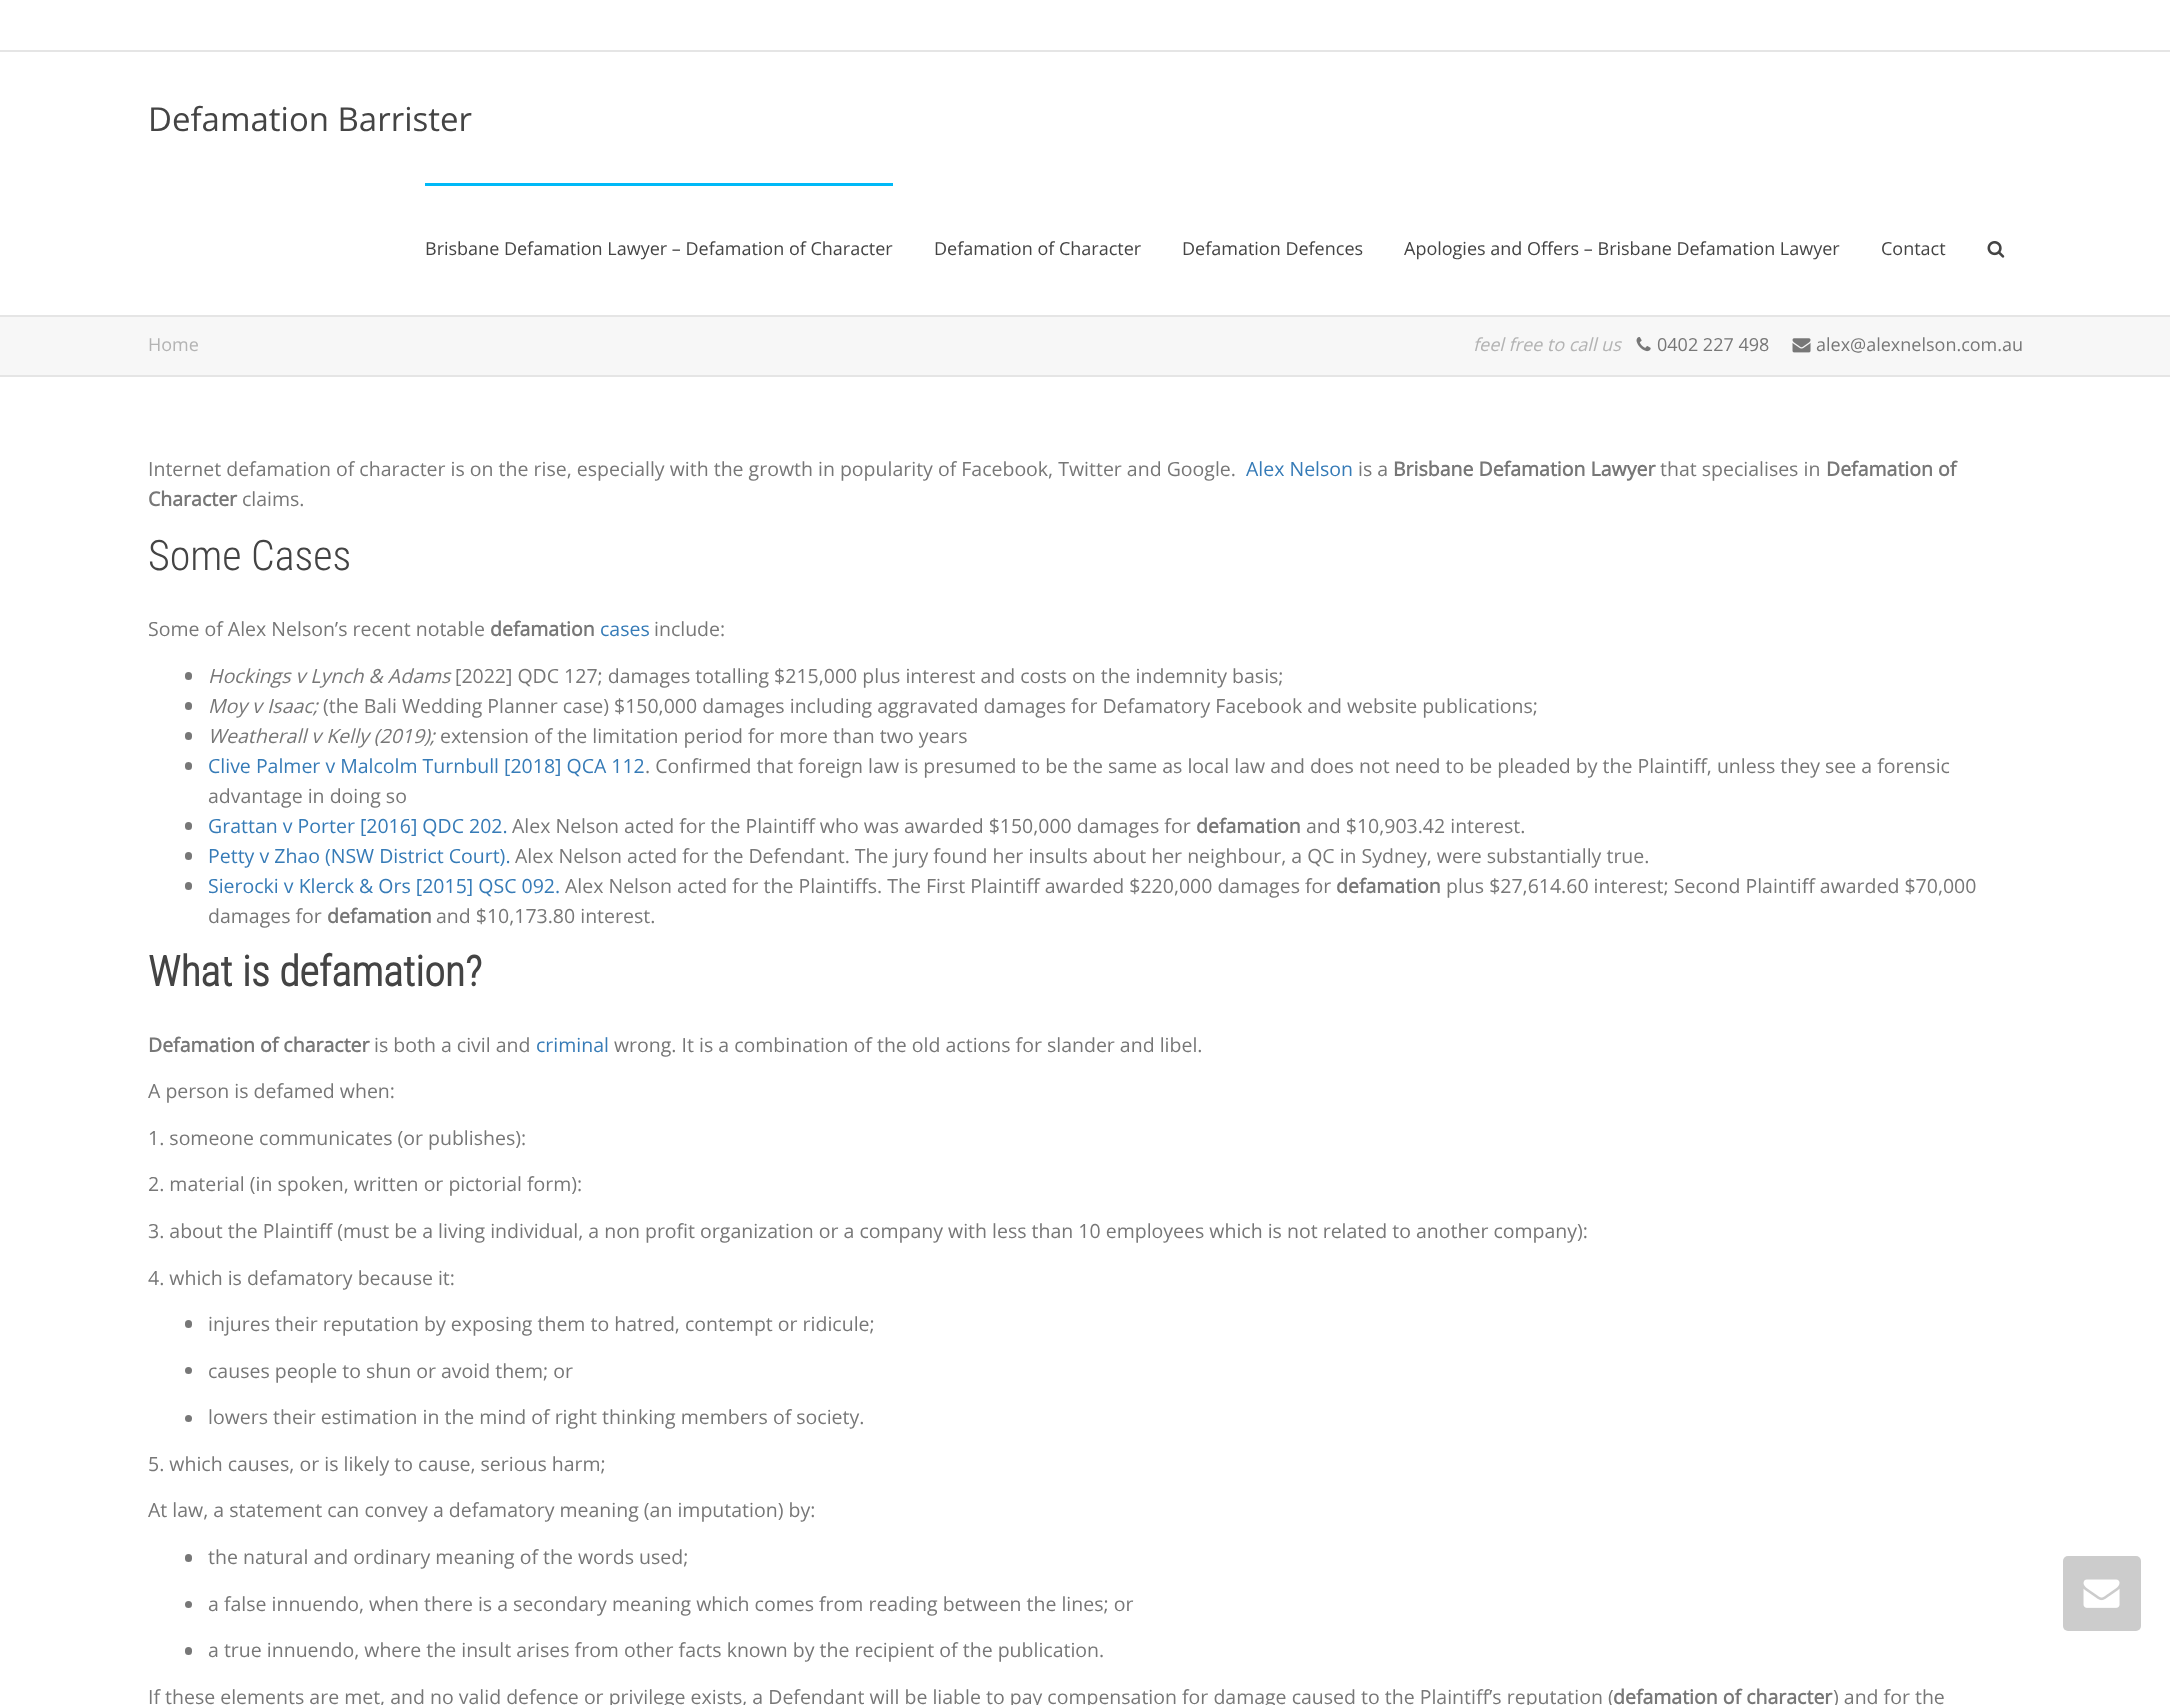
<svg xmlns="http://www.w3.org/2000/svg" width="2170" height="1705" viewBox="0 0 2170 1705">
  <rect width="100%" height="100%" fill="#fff"/>
  <path d="M0 50h2170v2H0z" fill="#e5e5e5"/>
  <path d="M0 315h2170v2H0z" fill="#e5e5e5"/>
  <path d="M425 183h468v3H425z" fill="#00b9f7"/>
  <image x="1987" y="241" width="18" height="17" href="img/1.png"/>
  <path d="M0 317h2170v58H0z" fill="#f7f7f7"/>
  <path d="M0 375h2170v2H0z" fill="#e5e5e5"/>
  <image x="1636" y="337" width="15" height="15" href="img/2.png"/>
  <image x="1792" y="338" width="19" height="15" href="img/3.png"/>
  <rect x="185" y="672" width="7" height="8" rx="3.5" fill="#777"/>
  <rect x="185" y="702" width="7" height="8" rx="3.5" fill="#777"/>
  <rect x="185" y="732" width="7" height="8" rx="3.5" fill="#777"/>
  <rect x="185" y="762" width="7" height="8" rx="3.5" fill="#777"/>
  <rect x="185" y="822" width="7" height="8" rx="3.5" fill="#777"/>
  <rect x="185" y="852" width="7" height="8" rx="3.5" fill="#777"/>
  <rect x="185" y="882" width="7" height="8" rx="3.5" fill="#777"/>
  <rect x="185" y="1320" width="7" height="8" rx="3.5" fill="#777"/>
  <circle cx="188.5" cy="1370.5" r="3.5" fill="#777"/>
  <circle cx="188.5" cy="1418.5" r="3.5" fill="#777"/>
  <rect x="185" y="1554" width="7" height="8" rx="3.5" fill="#777"/>
  <circle cx="188.5" cy="1604.5" r="3.5" fill="#777"/>
  <rect x="185" y="1647" width="7" height="8" rx="3.5" fill="#777"/>
  <rect x="2063" y="1556" width="78" height="75" rx="5" fill="#ccc"/>
  <image x="2083" y="1579" width="37" height="29" href="img/4.png"/>
  <text x="148" y="131" font-family="Open Sans" font-size="33" fill="#444">Defamation Barrister</text>
  <g font-family="Open Sans" font-size="18" fill="#444">
    <text x="425" y="255">Brisbane Defamation Lawyer – Defamation of Character</text>
    <text x="934" y="255">Defamation of Character</text>
    <text x="1182" y="255">Defamation Defences</text>
    <text x="1404" y="255">Apologies and Offers – Brisbane Defamation Lawyer</text>
    <text x="1881" y="255">Contact</text>
  </g>
  <text x="148" y="351" font-family="Open Sans" font-size="18" fill="#b3b3b3">Home</text>
  <text x="1473" y="351" font-family="Open Sans" font-size="18" font-style="italic" fill="#b3b3b3">feel free to call us</text>
  <g font-family="Open Sans" font-size="18" fill="#777">
    <text x="1657" y="351">0402 227 498</text>
    <text x="1816" y="351">alex@alexnelson.com.au</text>
  </g>
  <text x="148" y="476" font-family="Open Sans" font-size="19.5" fill="#777">Internet defamation of character is on the rise, especially with the growth in popularity of Facebook, Twitter and Google.</text>
  <text x="1246" y="476" font-family="Open Sans" font-size="19.5" fill="#367bb7">Alex Nelson</text>
  <text x="1358" y="476" font-family="Open Sans" font-size="19.5" fill="#777">is a</text>
  <text x="1393" y="476" font-family="Open Sans" font-size="19.5" font-weight="bold" fill="#777">Brisbane Defamation Lawyer</text>
  <text x="1660" y="476" font-family="Open Sans" font-size="19.5" fill="#777">that specialises in</text>
  <g font-family="Open Sans" font-size="19.5" font-weight="bold" fill="#777">
    <text x="1826" y="476">Defamation of</text>
    <text x="148" y="506">Character</text>
  </g>
  <text x="242" y="506" font-family="Open Sans" font-size="19.5" fill="#777">claims.</text>
  <text x="148" y="570" font-family="Roboto Condensed" font-size="42" font-weight="300" fill="#444">Some Cases</text>
  <text x="148" y="636" font-family="Open Sans" font-size="19.5" fill="#777">Some of Alex Nelson’s recent notable</text>
  <text x="490" y="636" font-family="Open Sans" font-size="19.5" font-weight="bold" fill="#777">defamation</text>
  <text x="600" y="636" font-family="Open Sans" font-size="19.5" fill="#367bb7">cases</text>
  <text x="654" y="636" font-family="Open Sans" font-size="19.5" fill="#777">include:</text>
  <text x="208" y="683" font-family="Open Sans" font-size="19.5" font-style="italic" fill="#777">Hockings v Lynch &amp; Adams</text>
  <text x="455" y="683" font-family="Open Sans" font-size="19.5" fill="#777">[2022] QDC 127; damages totalling $215,000 plus interest and costs on the indemnity basis;</text>
  <text x="208" y="713" font-family="Open Sans" font-size="19.5" font-style="italic" fill="#777">Moy v Isaac;</text>
  <text x="323" y="713" font-family="Open Sans" font-size="19.5" fill="#777">(the Bali Wedding Planner case) $150,000 damages including aggravated damages for Defamatory Facebook and website publications;</text>
  <text x="208" y="743" font-family="Open Sans" font-size="19.5" font-style="italic" fill="#777">Weatherall v Kelly (2019);</text>
  <text x="440" y="743" font-family="Open Sans" font-size="19.5" fill="#777">extension of the limitation period for more than two years</text>
  <text x="208" y="773" font-family="Open Sans" font-size="19.5" fill="#367bb7">Clive Palmer v Malcolm Turnbull [2018] QCA 112</text>
  <g font-family="Open Sans" font-size="19.5" fill="#777">
    <text x="645" y="773">. Confirmed that foreign law is presumed to be the same as local law and does not need to be pleaded by the Plaintiff, unless they see a forensic</text>
    <text x="208" y="803">advantage in doing so</text>
  </g>
  <text x="208" y="833" font-family="Open Sans" font-size="19.5" fill="#367bb7">Grattan v Porter [2016] QDC 202.</text>
  <text x="512" y="833" font-family="Open Sans" font-size="19.5" fill="#777">Alex Nelson acted for the Plaintiff who was awarded $150,000 damages for</text>
  <text x="1196" y="833" font-family="Open Sans" font-size="19.5" font-weight="bold" fill="#777">defamation</text>
  <text x="1306" y="833" font-family="Open Sans" font-size="19.5" fill="#777">and $10,903.42 interest.</text>
  <text x="208" y="863" font-family="Open Sans" font-size="19.5" fill="#367bb7">Petty v Zhao (NSW District Court).</text>
  <text x="515" y="863" font-family="Open Sans" font-size="19.5" fill="#777">Alex Nelson acted for the Defendant. The jury found her insults about her neighbour, a QC in Sydney, were substantially true.</text>
  <text x="208" y="893" font-family="Open Sans" font-size="19.5" fill="#367bb7">Sierocki v Klerck &amp; Ors [2015] QSC 092.</text>
  <text x="565" y="893" font-family="Open Sans" font-size="19.5" fill="#777">Alex Nelson acted for the Plaintiffs. The First Plaintiff awarded $220,000 damages for</text>
  <text x="1336" y="893" font-family="Open Sans" font-size="19.5" font-weight="bold" fill="#777">defamation</text>
  <g font-family="Open Sans" font-size="19.5" fill="#777">
    <text x="1446" y="893">plus $27,614.60 interest; Second Plaintiff awarded $70,000</text>
    <text x="208" y="923">damages for</text>
  </g>
  <text x="327" y="923" font-family="Open Sans" font-size="19.5" font-weight="bold" fill="#777">defamation</text>
  <text x="436" y="923" font-family="Open Sans" font-size="19.5" fill="#777">and $10,173.80 interest.</text>
  <text x="148" y="986" font-family="Roboto Condensed" font-size="42" font-weight="bold" fill="#444">What is defamation?</text>
  <text x="148" y="1052" font-family="Open Sans" font-size="19.5" font-weight="bold" fill="#777">Defamation of character</text>
  <text x="374" y="1052" font-family="Open Sans" font-size="19.5" fill="#777">is both a civil and</text>
  <text x="536" y="1052" font-family="Open Sans" font-size="19.5" fill="#367bb7">criminal</text>
  <g font-family="Open Sans" font-size="19.5" fill="#777">
    <text x="614" y="1052">wrong. It is a combination of the old actions for slander and libel.</text>
    <text x="148" y="1098">A person is defamed when:</text>
    <text x="148" y="1145">1. someone communicates (or publishes):</text>
    <text x="148" y="1191">2. material (in spoken, written or pictorial form):</text>
    <text x="148" y="1238">3. about the Plaintiff (must be a living individual, a non profit organization or a company with less than 10 employees which is not related to another company):</text>
    <text x="148" y="1285">4. which is defamatory because it:</text>
    <text x="208" y="1331">injures their reputation by exposing them to hatred, contempt or ridicule;</text>
    <text x="208" y="1378">causes people to shun or avoid them; or</text>
    <text x="208" y="1424">lowers their estimation in the mind of right thinking members of society.</text>
    <text x="148" y="1471">5. which causes, or is likely to cause, serious harm;</text>
    <text x="148" y="1517">At law, a statement can convey a defamatory meaning (an imputation) by:</text>
    <text x="208" y="1564">the natural and ordinary meaning of the words used;</text>
    <text x="208" y="1611">a false innuendo, when there is a secondary meaning which comes from reading between the lines; or</text>
    <text x="208" y="1657">a true innuendo, where the insult arises from other facts known by the recipient of the publication.</text>
    <text x="148" y="1704">If these elements are met, and no valid defence or privilege exists, a Defendant will be liable to pay compensation for damage caused to the Plaintiff’s reputation (</text>
  </g>
  <text x="1613" y="1704" font-family="Open Sans" font-size="19.5" font-weight="bold" fill="#777">defamation of character</text>
  <text x="1833" y="1704" font-family="Open Sans" font-size="19.5" fill="#777">) and for the</text>
</svg>
